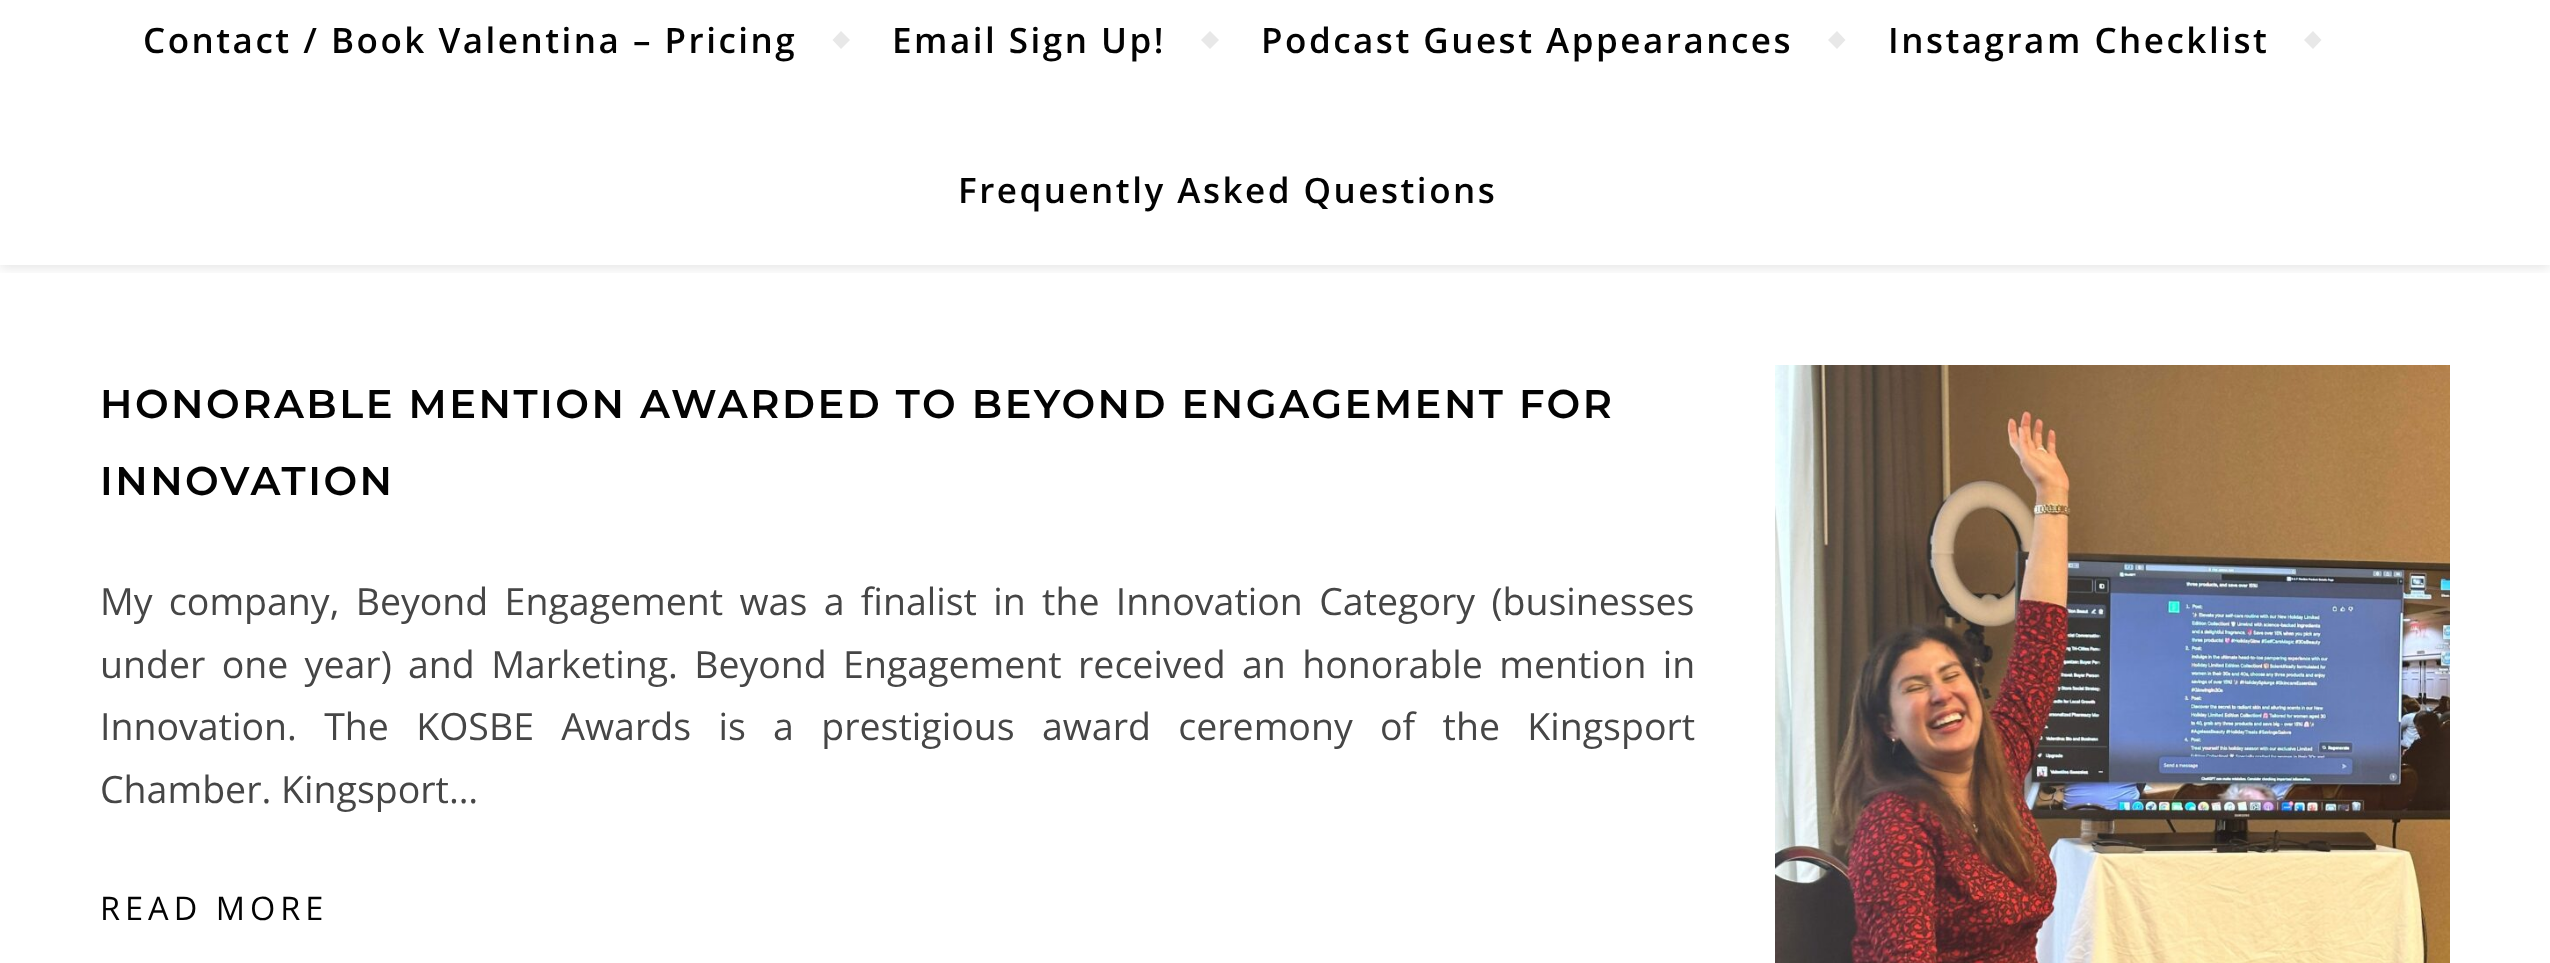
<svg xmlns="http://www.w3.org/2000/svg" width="2550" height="963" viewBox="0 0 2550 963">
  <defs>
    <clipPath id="clip1"><path d="M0 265h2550v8H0z"/></clipPath>
  </defs>
  <rect width="100%" height="100%" fill="#fff"/>
  <g clip-path="url(#clip1)">
    <path d="M0 -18h2550v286H0z" fill="#0000001a" filter="blur(6px)"/>
  </g>
  <path d="M832.5 40L841 31L850 40L841 49Z" fill="#e8e8e8"/>
  <path d="M1201 40L1210 31L1219 40L1210 49Z" fill="#e8e8e8"/>
  <path d="M1828 40L1837 31L1845.5 40L1837 49Z" fill="#e8e8e8"/>
  <path d="M2304 40L2313 31L2321.5 40L2313 49Z" fill="#e8e8e8"/>
  <image x="1775" y="365" width="675" height="598" href="img/1.png"/>
  <g font-family="Open Sans" font-size="35" font-weight="600" letter-spacing="2.5" fill="#030303">
    <text x="143" y="53">Contact / Book Valentina – Pricing</text>
    <text x="892" y="53">Email Sign Up!</text>
    <text x="1261" y="53">Podcast Guest Appearances</text>
    <text x="1888" y="53">Instagram Checklist</text>
    <text x="958" y="203">Frequently Asked Questions</text>
  </g>
  <g font-family="Montserrat" font-size="40" font-weight="600" letter-spacing="2.5" fill="#030303">
    <text x="100" y="418">HONORABLE MENTION AWARDED TO BEYOND ENGAGEMENT FOR</text>
    <text x="100" y="495">INNOVATION</text>
  </g>
  <g font-family="Open Sans" font-size="37.5" fill="#464646">
    <text x="100" y="615" word-spacing="6.6">My company, Beyond Engagement was a finalist in the Innovation Category (businesses</text>
    <text x="100" y="678" word-spacing="6.6">under one year) and Marketing. Beyond Engagement received an honorable mention in</text>
    <text x="100" y="740" word-spacing="17.6">Innovation. The KOSBE Awards is a prestigious award ceremony of the Kingsport</text>
    <text x="100" y="803">Chamber. Kingsport…</text>
  </g>
  <text x="100" y="920" font-family="Open Sans" font-size="32.5" letter-spacing="5" fill="#030303">READ MORE</text>
</svg>
